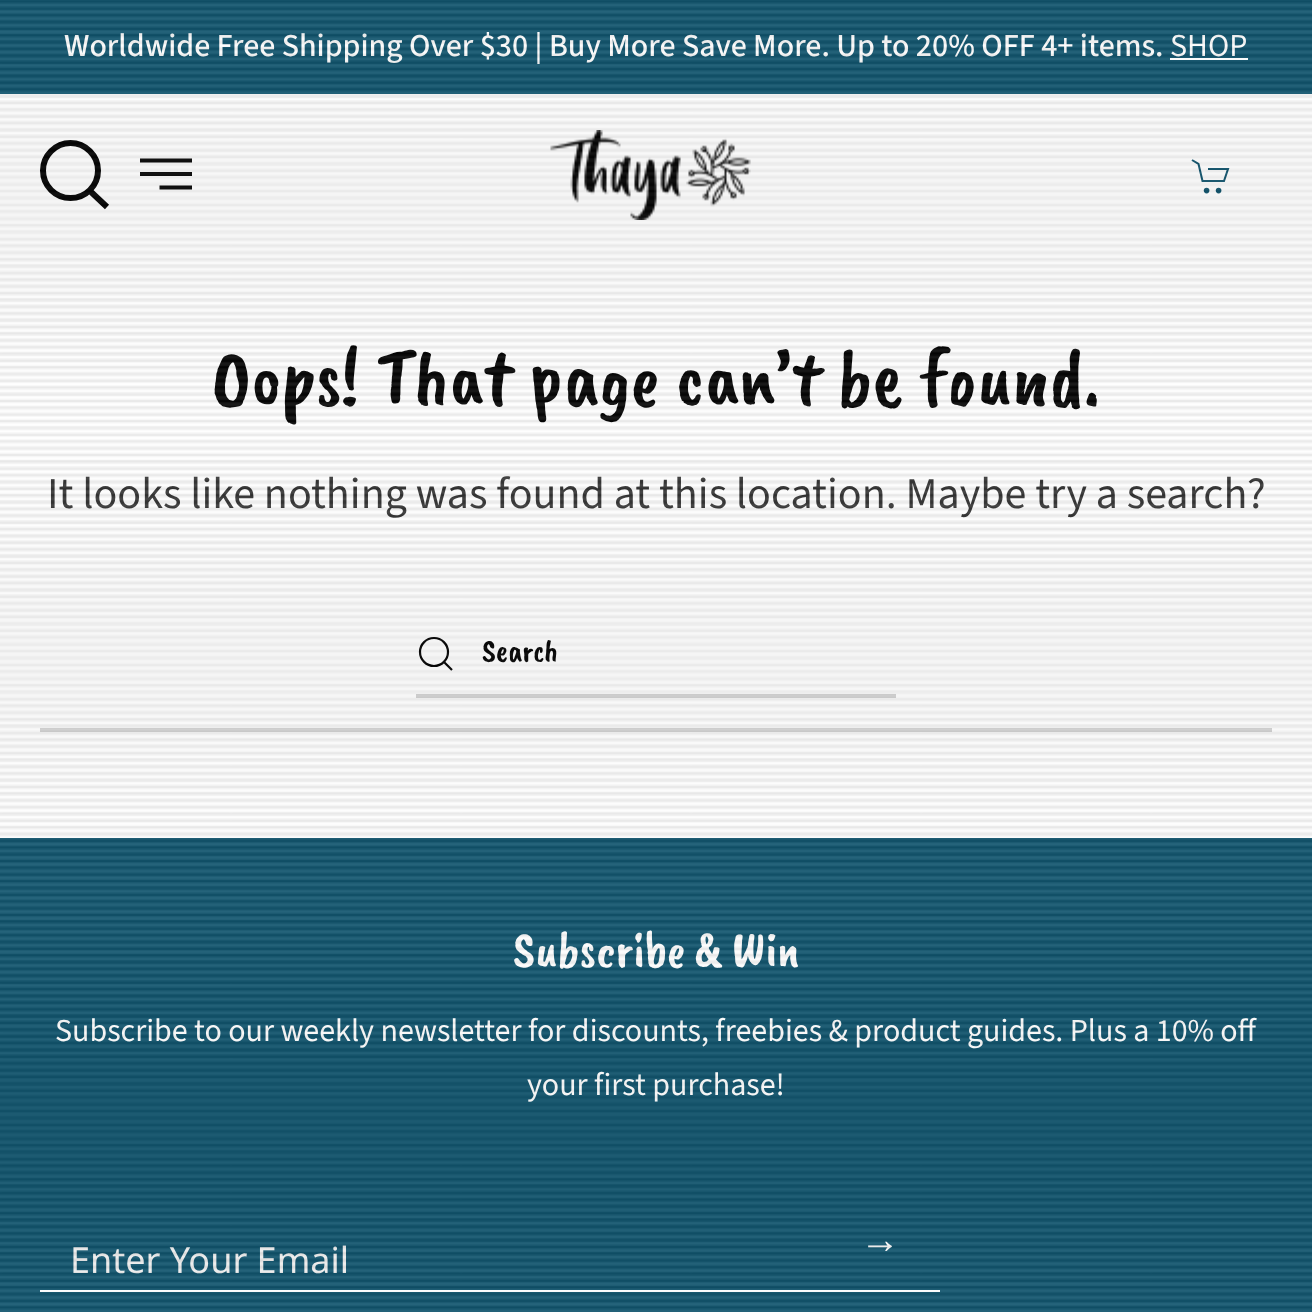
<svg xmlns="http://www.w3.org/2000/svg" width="1312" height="1312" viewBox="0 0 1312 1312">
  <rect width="100%" height="100%" fill="#fff"/>
  <path d="M0 0h1312v94H0z" fill="#0e536d"/>
  <path d="M1170 58h78v2H1170z" fill="#fff"/>
  <path d="M98 170.5C98 186 85.5 198 70.5 198C55.5 198 43 186 43 170.5C43 155.5 55.5 143 70.5 143C85.5 143 98 155.5 98 170.5ZM107 207L89.5 190.5" fill="none" stroke="#000" stroke-width="6"/>
  <path d="M140 172h52v4H140z" fill="#000"/>
  <path d="M159.5 187.5H192M140 160.5H192" fill="none" stroke="#000" stroke-width="4"/>
  <image x="550" y="130" width="201" height="90" href="img/2.png"/>
  <path d="M1192 160L1198.5 164L1202.5 181H1224L1228 169H1208" fill="none" stroke="#0e536d" stroke-width="2"/>
  <circle cx="1206.6" cy="190.6" r="2.8" fill="#0e536d"/>
  <circle cx="1218.6" cy="190.6" r="2.8" fill="#0e536d"/>
  <circle cx="434" cy="652" r="14" fill="none" stroke="#000" stroke-width="2.2"/>
  <path d="M444 662L452 670Z" fill="none" stroke="#000" stroke-width="2.2"/>
  <path d="M416 694h480v4H416z" fill="#d2d2d2"/>
  <path d="M40 728h1232v4H40z" fill="#d2d2d2"/>
  <path d="M0 838h1312v474H0z" fill="#0e536d"/>
  <path d="M40 1290h900v2H40z" fill="#fff"/>
  <text x="64" y="56" font-family="'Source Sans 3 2'" font-size="32" font-weight="200" fill="#fff">Worldwide Free Shipping Over $30 | Buy More Save More. Up to 20% OFF 4+ items.</text>
  <text x="1170" y="56" font-family="'Source Sans 3'" font-size="32" font-weight="200" fill="#fff">SHOP</text>
  <text x="212" y="404" font-family="Caveat Brush" font-size="80" fill="#000">Oops! That page can’t be found.</text>
  <text x="47" y="508" font-family="'Source Sans 3'" font-size="44" font-weight="200" fill="#333">It looks like nothing was found at this location. Maybe try a search?</text>
  <text x="482" y="661" font-family="Caveat Brush" font-size="32" fill="#000">Search</text>
  <text x="513" y="966" font-family="Caveat Brush" font-size="51" fill="#fff">Subscribe &amp; Win</text>
  <g font-family="'Source Sans 3'" font-size="32" font-weight="200" fill="#fff">
    <text x="55" y="1041">Subscribe to our weekly newsletter for discounts, freebies &amp; product guides. Plus a 10% off</text>
    <text x="527" y="1095">your first purchase!</text>
  </g>
  <text x="70" y="1273" font-family="Noto Sans" font-size="36" fill="#f0f0f0">Enter Your Email</text>
  <text x="860" y="1253" font-family="Liberation Sans" font-size="40" fill="#fff">→</text>
  <image x="0" y="0" width="1312" height="1312" href="img/1.png"/>
</svg>
